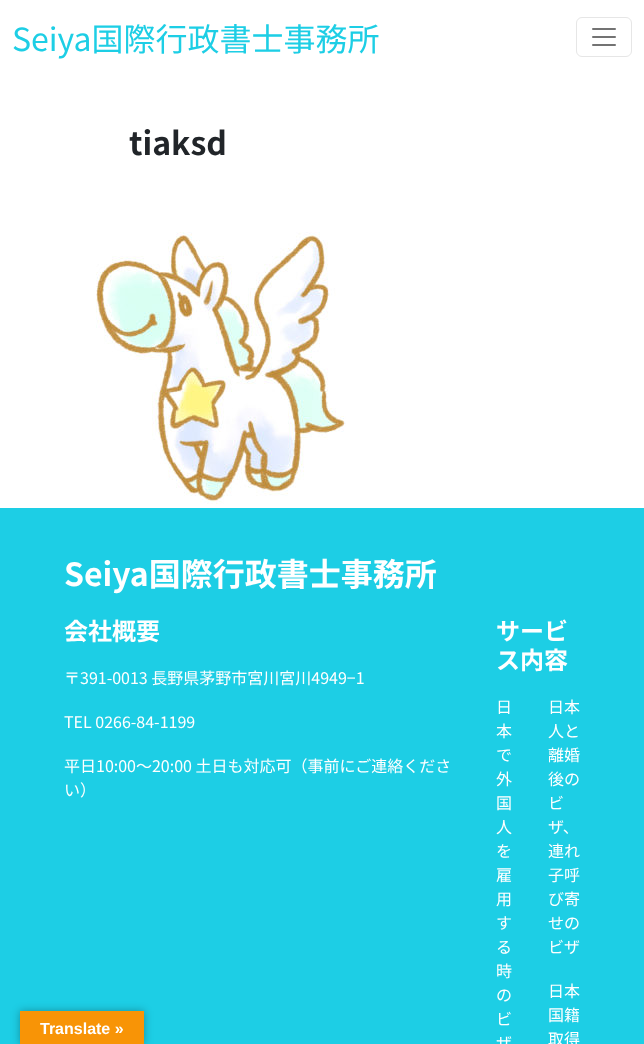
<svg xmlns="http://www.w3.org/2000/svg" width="644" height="1044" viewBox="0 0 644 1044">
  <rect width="100%" height="100%" fill="#fff"/>
  <rect x="576.5" y="17.5" width="55" height="39" rx="5.5" fill="none" stroke="#e6e6e6"/>
  <image x="592" y="28" width="24" height="18" href="img/1.png"/>
  <image x="96" y="232" width="250" height="272" href="img/2.png"/>
  <path d="M0 508h644v536H0z" fill="#1dcee5"/>
  <path d="M20 1011h124v33H20z" fill="#0000004d" filter="blur(4.5px)"/>
  <path d="M20 1011h124v33H20z" fill="#f89406"/>
  <text x="12" y="51" font-family="Noto Sans JP" font-size="32" fill="#1dcee5">Seiya国際行政書士事務所</text>
  <text x="129" y="155" font-family="Noto Sans JP" font-size="32" font-weight="bold" fill="#212529">tiaksd</text>
  <text x="64" y="586" font-family="Noto Sans JP" font-size="32" font-weight="bold" fill="#fff">Seiya国際行政書士事務所</text>
  <text x="64" y="640" font-family="Noto Sans JP" font-size="24" font-weight="bold" fill="#fff">会社概要</text>
  <g font-family="Noto Sans JP" font-size="16" fill="#fff">
    <text x="64" y="684">〒391-0013 長野県茅野市宮川宮川4949−1</text>
    <text x="64" y="728">TEL 0266-84-1199</text>
    <text x="64" y="772">平日10:00〜20:00 土日も対応可（事前にご連絡くださ</text>
    <text x="64" y="796">い）</text>
  </g>
  <g font-family="Noto Sans JP" font-size="24" font-weight="bold" fill="#fff">
    <text x="496" y="640">サービ</text>
    <text x="496" y="669">ス内容</text>
  </g>
  <g font-family="Noto Sans JP" font-size="16" fill="#fff">
    <text x="496" y="713">日</text>
    <text x="496" y="737">本</text>
    <text x="496" y="761">で</text>
    <text x="496" y="785">外</text>
    <text x="496" y="809">国</text>
    <text x="496" y="833">人</text>
    <text x="496" y="857">を</text>
    <text x="496" y="881">雇</text>
    <text x="496" y="905">用</text>
    <text x="496" y="929">す</text>
    <text x="496" y="953">る</text>
    <text x="496" y="977">時</text>
    <text x="496" y="1001">の</text>
    <text x="496" y="1025">ビ</text>
    <text x="496" y="1049">ザ</text>
    <text x="548" y="713">日本</text>
    <text x="548" y="737">人と</text>
    <text x="548" y="761">離婚</text>
    <text x="548" y="785">後の</text>
    <text x="548" y="809">ビ</text>
    <text x="548" y="833">ザ、</text>
    <text x="548" y="857">連れ</text>
    <text x="548" y="881">子呼</text>
    <text x="548" y="905">び寄</text>
    <text x="548" y="929">せの</text>
    <text x="548" y="953">ビザ</text>
    <text x="548" y="997">日本</text>
    <text x="548" y="1021">国籍</text>
    <text x="548" y="1045">取得</text>
  </g>
  <text x="40" y="1034" font-family="Liberation Sans" font-size="16" font-weight="bold" fill="#fff">Translate »</text>
</svg>
